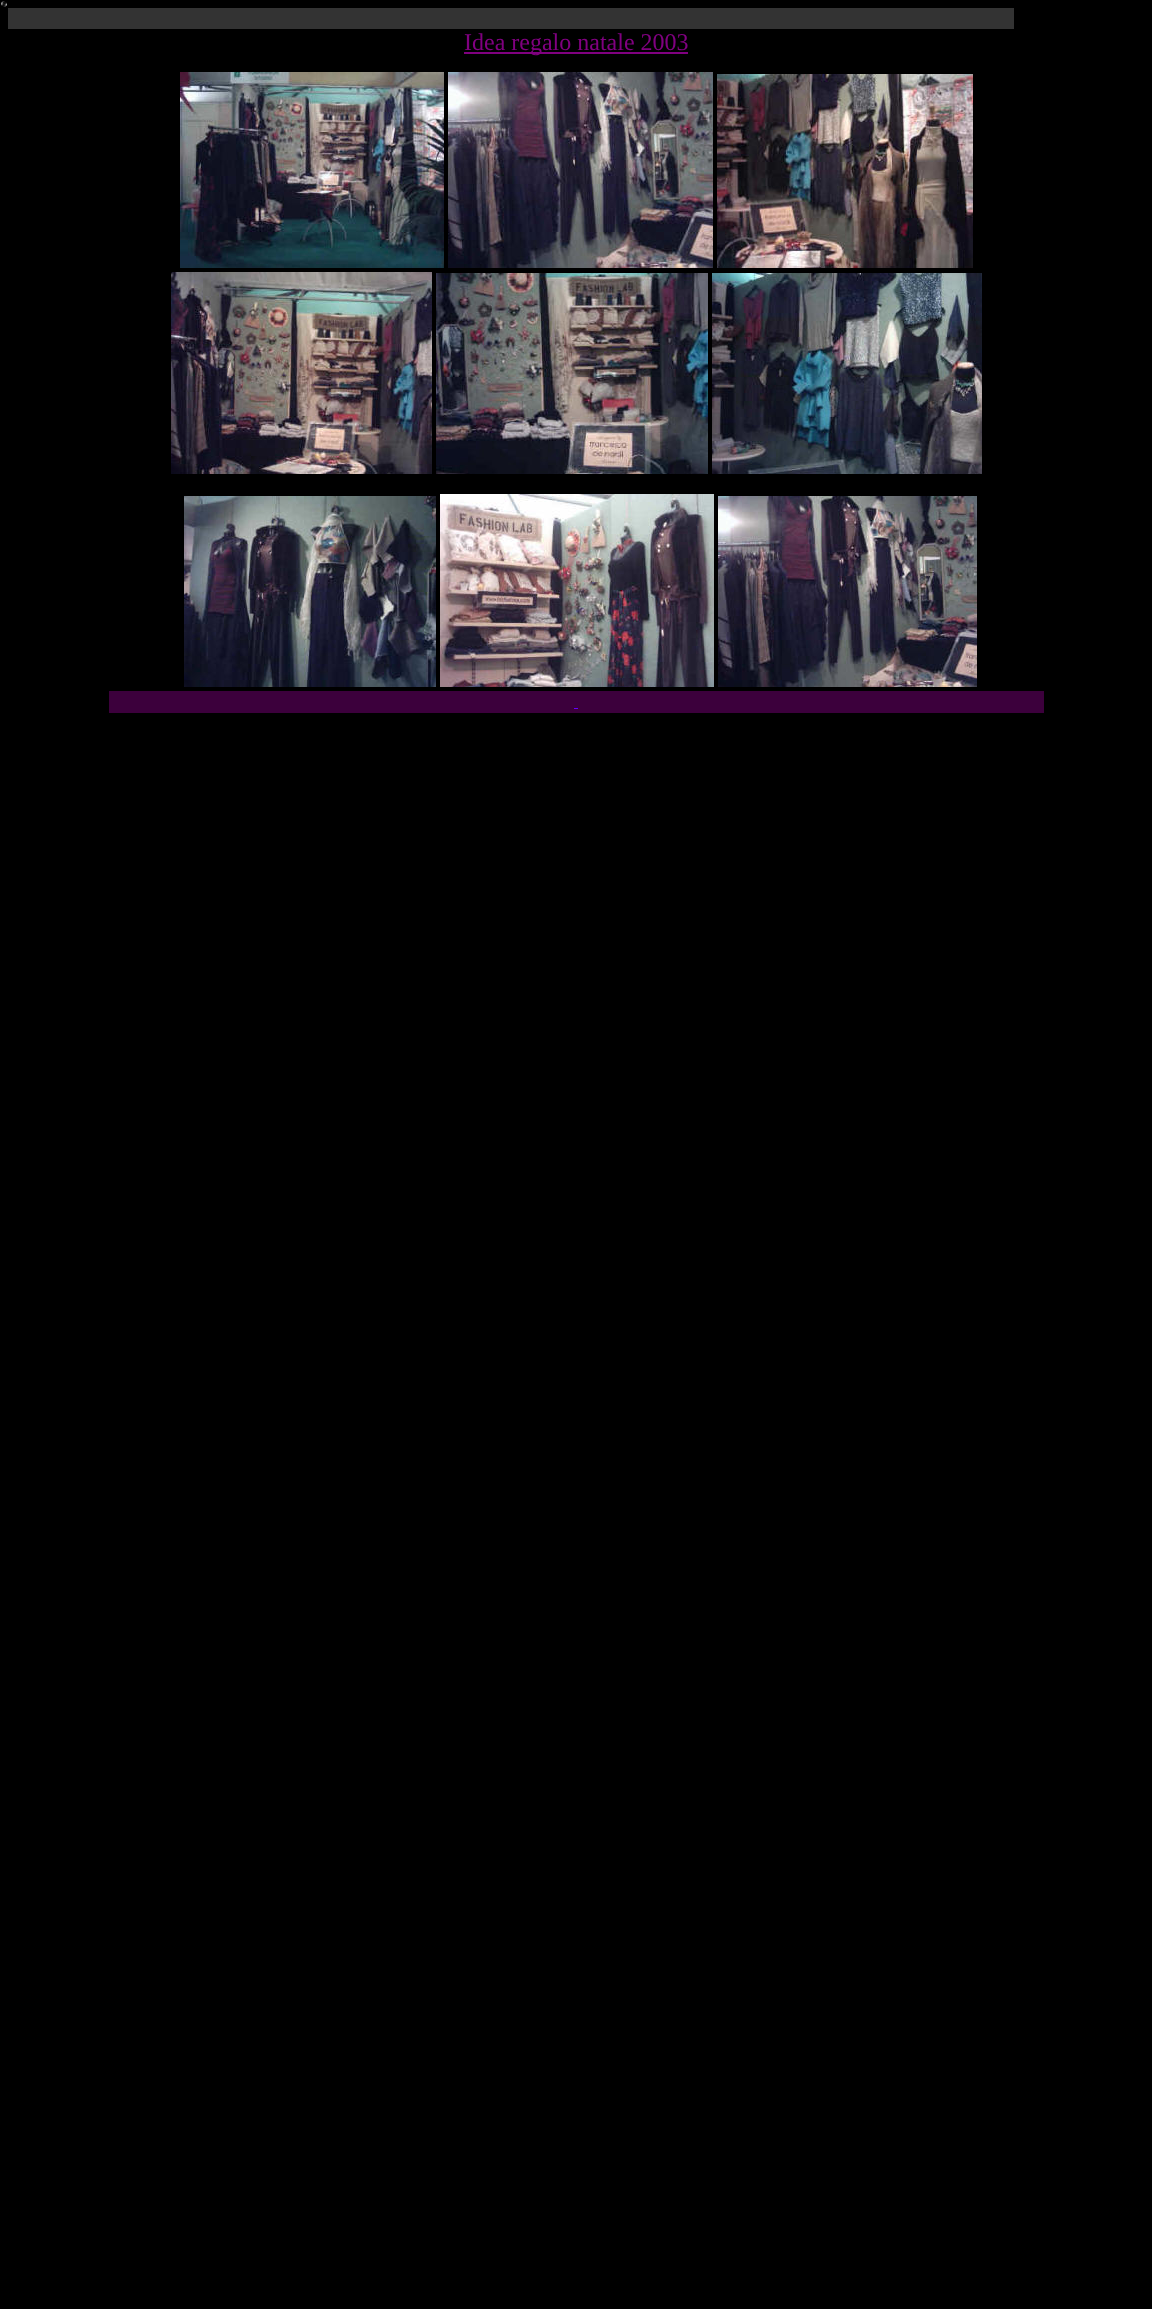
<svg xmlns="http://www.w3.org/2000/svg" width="1152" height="2309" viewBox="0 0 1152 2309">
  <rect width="100%" height="100%" fill="#000"/>
  <image x="1" y="1" width="6" height="6" href="img/1.png"/>
  <image x="1" y="1" width="6" height="6" href="img/2.png"/>
  <image x="1" y="1" width="6" height="6" href="img/3.png"/>
  <image x="1" y="1" width="6" height="6" href="img/4.png"/>
  <image x="1" y="1" width="6" height="5" href="img/5.png"/>
  <image x="1" y="2" width="6" height="4" href="img/6.png"/>
  <path d="M1 2h1v1H1z" fill="#4d4d4d"/>
  <path d="M8 8h1006v21H8z" fill="#333"/>
  <path d="M464 52h224v2H464z" fill="#800080"/>
  <image x="180" y="72" width="264" height="196" href="img/7.png"/>
  <image x="448" y="72" width="265" height="196" href="img/8.png"/>
  <image x="717" y="74" width="256" height="194" href="img/9.png"/>
  <image x="171" y="272" width="261" height="202" href="img/10.png"/>
  <image x="436" y="273" width="272" height="201" href="img/11.png"/>
  <image x="712" y="273" width="270" height="201" href="img/12.png"/>
  <image x="184" y="496" width="252" height="191" href="img/13.png"/>
  <image x="440" y="494" width="274" height="193" href="img/14.png"/>
  <image x="718" y="496" width="259" height="191" href="img/15.png"/>
  <path d="M109 691h935v22H109z" fill="#3c003c"/>
  <path d="M574 708h4v1H574z" fill="#60f"/>
  <text x="464" y="50" font-family="Liberation Serif" font-size="24" fill="#800080">Idea regalo natale 2003</text>
</svg>
